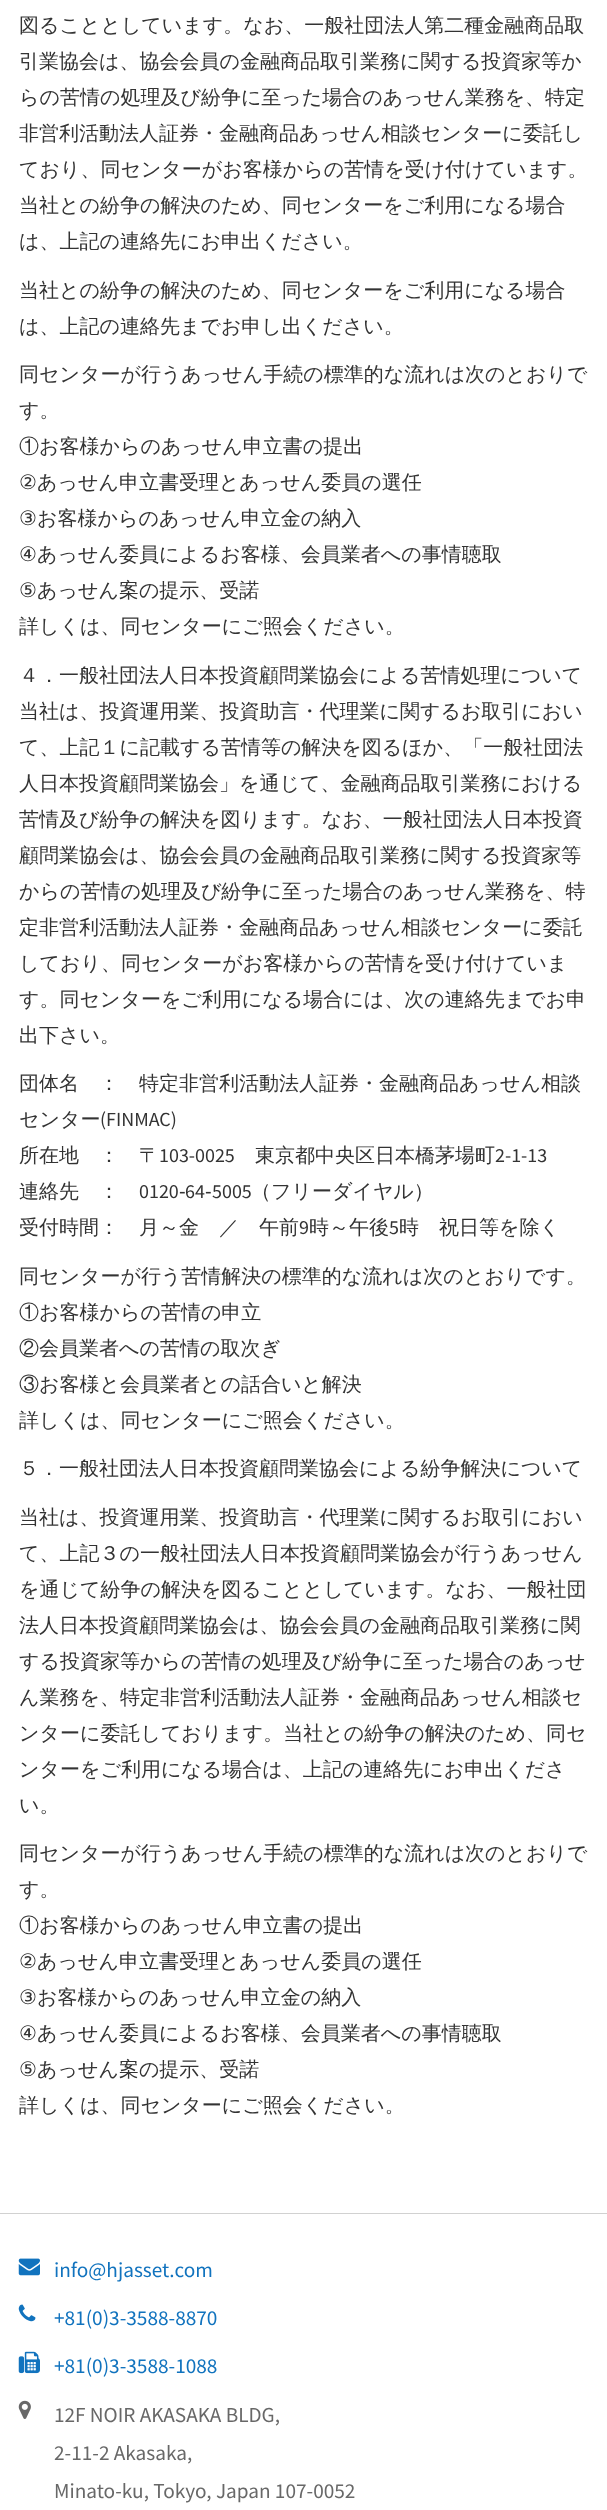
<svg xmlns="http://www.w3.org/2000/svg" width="607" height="2510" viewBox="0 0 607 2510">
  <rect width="100%" height="100%" fill="#fff"/>
  <path d="M0 2213h607v1H0z" fill="#d1d1d1"/>
  <image x="18" y="2258" width="22" height="18" href="img/1.png"/>
  <image x="18" y="2304" width="18" height="18" href="img/2.png"/>
  <image x="18" y="2351" width="22" height="23" href="img/3.png"/>
  <image x="18" y="2400" width="13" height="19" href="img/4.png"/>
  <g font-family="WenQuanYi Zen Hei" font-size="20" font-weight="500" fill="#333">
    <text x="19" y="32">図ることとしています。なお、一般社団法人第二種金融商品取</text>
    <text x="19" y="68">引業協会は、協会会員の金融商品取引業務に関する投資家等か</text>
    <text x="19" y="104">らの苦情の処理及び紛争に至った場合のあっせん業務を、特定</text>
    <text x="19" y="140">非営利活動法人証券・金融商品あっせん相談センターに委託し</text>
    <text x="19" y="176">ており、同センターがお客様からの苦情を受け付けています。</text>
    <text x="19" y="212">当社との紛争の解決のため、同センターをご利用になる場合</text>
    <text x="19" y="248">は、上記の連絡先にお申出ください。</text>
    <text x="19" y="297">当社との紛争の解決のため、同センターをご利用になる場合</text>
    <text x="19" y="333">は、上記の連絡先までお申し出ください。</text>
    <text x="19" y="381">同センターが行うあっせん手続の標準的な流れは次のとおりで</text>
    <text x="19" y="417">す。</text>
    <text x="19" y="453">①お客様からのあっせん申立書の提出</text>
  </g>
  <text x="19" y="489" font-family="DejaVu Sans" font-size="20" fill="#333">②</text>
  <text x="37" y="489" font-family="WenQuanYi Zen Hei" font-size="20" font-weight="500" fill="#333">あっせん申立書受理とあっせん委員の選任</text>
  <text x="19" y="525" font-family="DejaVu Sans" font-size="20" fill="#333">③</text>
  <text x="37" y="525" font-family="WenQuanYi Zen Hei" font-size="20" font-weight="500" fill="#333">お客様からのあっせん申立金の納入</text>
  <text x="19" y="561" font-family="DejaVu Sans" font-size="20" fill="#333">④</text>
  <text x="37" y="561" font-family="WenQuanYi Zen Hei" font-size="20" font-weight="500" fill="#333">あっせん委員によるお客様、会員業者への事情聴取</text>
  <text x="19" y="597" font-family="DejaVu Sans" font-size="20" fill="#333">⑤</text>
  <g font-family="WenQuanYi Zen Hei" font-size="20" font-weight="500" fill="#333">
    <text x="37" y="597">あっせん案の提示、受諾</text>
    <text x="19" y="633">詳しくは、同センターにご照会ください。</text>
    <text x="19" y="682">４．一般社団法人日本投資顧問業協会による苦情処理について</text>
    <text x="19" y="718">当社は、投資運用業、投資助言・代理業に関するお取引におい</text>
    <text x="19" y="754">て、上記１に記載する苦情等の解決を図るほか、「一般社団法</text>
    <text x="19" y="790">人日本投資顧問業協会」を通じて、金融商品取引業務における</text>
    <text x="19" y="826">苦情及び紛争の解決を図ります。なお、一般社団法人日本投資</text>
    <text x="19" y="862">顧問業協会は、協会会員の金融商品取引業務に関する投資家等</text>
    <text x="19" y="898">からの苦情の処理及び紛争に至った場合のあっせん業務を、特</text>
    <text x="19" y="934">定非営利活動法人証券・金融商品あっせん相談センターに委託</text>
    <text x="19" y="970">しており、同センターがお客様からの苦情を受け付けていま</text>
    <text x="19" y="1006">す。同センターをご利用になる場合には、次の連絡先までお申</text>
    <text x="19" y="1042">出下さい。</text>
    <text x="19" y="1090">団体名　：　特定非営利活動法人証券・金融商品あっせん相談</text>
    <text x="19" y="1126">センター</text>
  </g>
  <text x="100" y="1126" font-family="Source Sans Pro" font-size="20" fill="#333">(FINMAC)</text>
  <text x="19" y="1162" font-family="WenQuanYi Zen Hei" font-size="20" font-weight="500" fill="#333">所在地　：　〒</text>
  <text x="159" y="1162" font-family="Source Sans Pro" font-size="20" fill="#333">103-0025</text>
  <text x="255" y="1162" font-family="WenQuanYi Zen Hei" font-size="20" font-weight="500" fill="#333">東京都中央区日本橋茅場町</text>
  <text x="495" y="1162" font-family="Source Sans Pro" font-size="20" fill="#333">2-1-13</text>
  <text x="19" y="1198" font-family="WenQuanYi Zen Hei" font-size="20" font-weight="500" fill="#333">連絡先　：</text>
  <text x="139" y="1198" font-family="Source Sans Pro" font-size="20" fill="#333">0120</text>
  <text x="179" y="1198" font-family="Liberation Sans" font-size="20" fill="#333">‐</text>
  <text x="185" y="1198" font-family="Source Sans Pro" font-size="20" fill="#333">64</text>
  <text x="205" y="1198" font-family="Liberation Sans" font-size="20" fill="#333">‐</text>
  <text x="212" y="1198" font-family="Source Sans Pro" font-size="20" fill="#333">5005</text>
  <g font-family="WenQuanYi Zen Hei" font-size="20" font-weight="500" fill="#333">
    <text x="251" y="1198">（フリーダイヤル）</text>
    <text x="19" y="1234">受付時間：　月～金　／　午前</text>
  </g>
  <text x="299" y="1234" font-family="Source Sans Pro" font-size="20" fill="#333">9</text>
  <text x="309" y="1234" font-family="WenQuanYi Zen Hei" font-size="20" font-weight="500" fill="#333">時～午後</text>
  <text x="389" y="1234" font-family="Source Sans Pro" font-size="20" fill="#333">5</text>
  <g font-family="WenQuanYi Zen Hei" font-size="20" font-weight="500" fill="#333">
    <text x="399" y="1234">時　祝日等を除く</text>
    <text x="19" y="1283">同センターが行う苦情解決の標準的な流れは次のとおりです。</text>
    <text x="19" y="1319">①お客様からの苦情の申立</text>
    <text x="19" y="1355">②会員業者への苦情の取次ぎ</text>
    <text x="19" y="1391">③お客様と会員業者との話合いと解決</text>
    <text x="19" y="1427">詳しくは、同センターにご照会ください。</text>
    <text x="19" y="1475">５．一般社団法人日本投資顧問業協会による紛争解決について</text>
    <text x="19" y="1524">当社は、投資運用業、投資助言・代理業に関するお取引におい</text>
    <text x="19" y="1560">て、上記３の一般社団法人日本投資顧問業協会が行うあっせん</text>
    <text x="19" y="1596">を通じて紛争の解決を図ることとしています。なお、一般社団</text>
    <text x="19" y="1632">法人日本投資顧問業協会は、協会会員の金融商品取引業務に関</text>
    <text x="19" y="1668">する投資家等からの苦情の処理及び紛争に至った場合のあっせ</text>
    <text x="19" y="1704">ん業務を、特定非営利活動法人証券・金融商品あっせん相談セ</text>
    <text x="19" y="1740">ンターに委託しております。当社との紛争の解決のため、同セ</text>
    <text x="19" y="1776">ンターをご利用になる場合は、上記の連絡先にお申出くださ</text>
    <text x="19" y="1812">い。</text>
    <text x="19" y="1860">同センターが行うあっせん手続の標準的な流れは次のとおりで</text>
    <text x="19" y="1896">す。</text>
    <text x="19" y="1932">①お客様からのあっせん申立書の提出</text>
  </g>
  <text x="19" y="1968" font-family="DejaVu Sans" font-size="20" fill="#333">②</text>
  <text x="37" y="1968" font-family="WenQuanYi Zen Hei" font-size="20" font-weight="500" fill="#333">あっせん申立書受理とあっせん委員の選任</text>
  <text x="19" y="2004" font-family="DejaVu Sans" font-size="20" fill="#333">③</text>
  <text x="37" y="2004" font-family="WenQuanYi Zen Hei" font-size="20" font-weight="500" fill="#333">お客様からのあっせん申立金の納入</text>
  <text x="19" y="2040" font-family="DejaVu Sans" font-size="20" fill="#333">④</text>
  <text x="37" y="2040" font-family="WenQuanYi Zen Hei" font-size="20" font-weight="500" fill="#333">あっせん委員によるお客様、会員業者への事情聴取</text>
  <text x="19" y="2076" font-family="DejaVu Sans" font-size="20" fill="#333">⑤</text>
  <g font-family="WenQuanYi Zen Hei" font-size="20" font-weight="500" fill="#333">
    <text x="37" y="2076">あっせん案の提示、受諾</text>
    <text x="19" y="2112">詳しくは、同センターにご照会ください。</text>
  </g>
  <g font-family="Source Sans Pro" font-size="21.25" fill="#1173be">
    <text x="54" y="2277">info@hjasset.com</text>
    <text x="54" y="2325">+81(0)3-3588-8870</text>
    <text x="54" y="2373">+81(0)3-3588-1088</text>
  </g>
  <g font-family="Source Sans Pro" font-size="21.25" fill="#686868">
    <text x="54" y="2422">12F NOIR AKASAKA BLDG,</text>
    <text x="54" y="2460">2-11-2 Akasaka,</text>
    <text x="54" y="2498">Minato-ku, Tokyo, Japan 107-0052</text>
  </g>
</svg>
